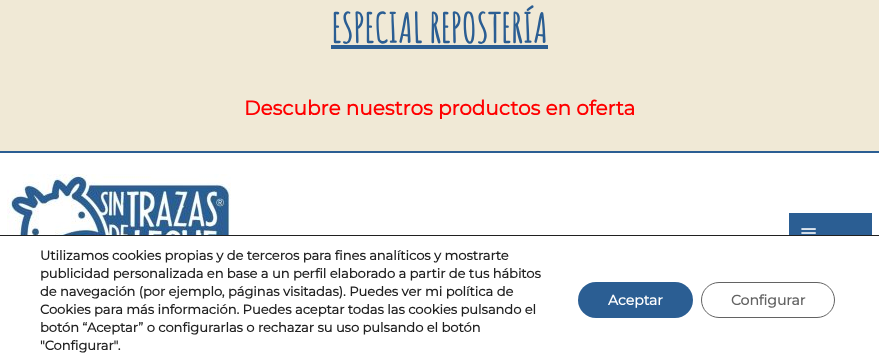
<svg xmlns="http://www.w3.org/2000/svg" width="879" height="364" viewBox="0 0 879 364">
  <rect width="100%" height="100%" fill="#fff"/>
  <path d="M0 0h879v151H0z" fill="#f0e9d6"/>
  <path d="M0 151h879v2H0z" fill="#2b5e93"/>
  <path d="M331 45h217v4H331z" fill="#2b5e93"/>
  <image x="7" y="174" width="224" height="61" href="img/1.png"/>
  <path d="M789 213h83v22H789z" fill="#2b5e93"/>
  <image x="801" y="228" width="15" height="6" href="img/2.png"/>
  <path d="M0 235h879v1H0z" fill="#202020"/>
  <rect x="578" y="282" width="115" height="36" rx="18" fill="#2b5e93"/>
  <rect x="701.5" y="282.5" width="133" height="35" rx="17.5" fill="none" stroke="#636363"/>
  <text x="331" y="43" font-family="Amatic SC" font-size="40" font-weight="bold" fill="#2b5e93">ESPECIAL REPOSTERÍA</text>
  <text x="244" y="115" font-family="Montserrat" font-size="20" font-weight="bold" fill="#f00">Descubre nuestros productos en oferta</text>
  <g font-family="Montserrat" font-size="13" font-weight="bold" fill="#202020">
    <text x="40" y="260">Utilizamos cookies propias y de terceros para fines analíticos y mostrarte</text>
    <text x="40" y="278">publicidad personalizada en base a un perfil elaborado a partir de tus hábitos</text>
    <text x="40" y="296">de navegación (por ejemplo, páginas visitadas). Puedes ver mi política de</text>
    <text x="40" y="314">Cookies para más información. Puedes aceptar todas las cookies pulsando el</text>
    <text x="40" y="332">botón “Aceptar” o configurarlas o rechazar su uso pulsando el botón</text>
    <text x="40" y="350">"Configurar".</text>
  </g>
  <text x="608" y="305" font-family="Montserrat" font-size="14" font-weight="bold" fill="#fff">Aceptar</text>
  <text x="731" y="305" font-family="Montserrat" font-size="14" font-weight="bold" fill="#636363">Configurar</text>
</svg>
